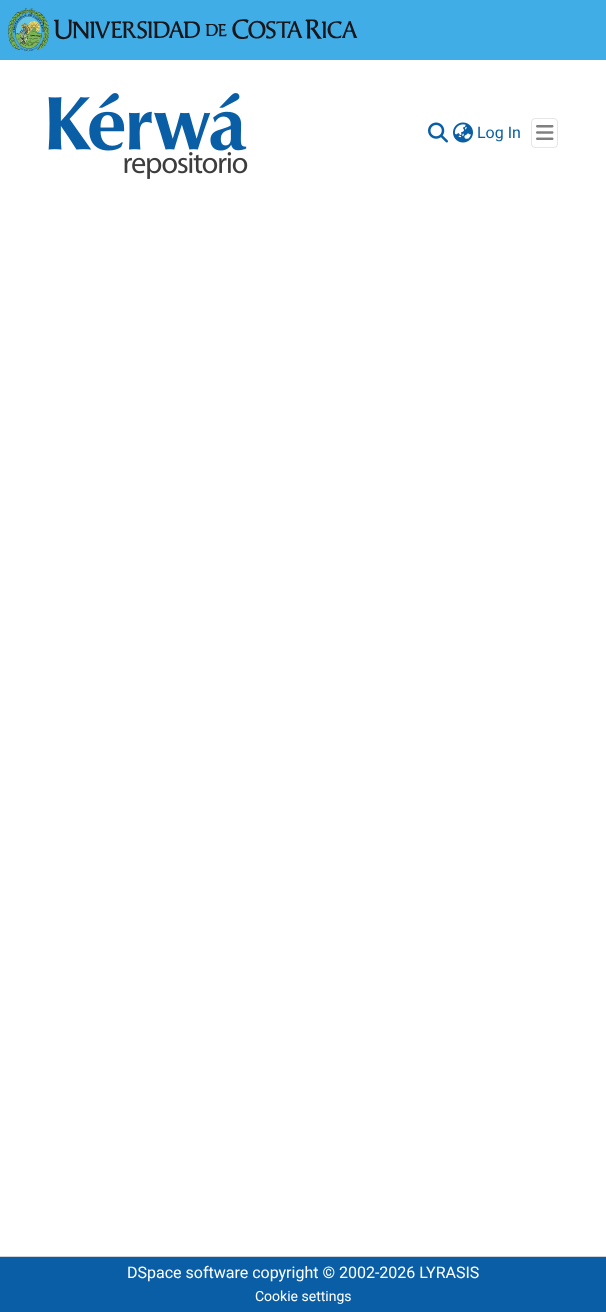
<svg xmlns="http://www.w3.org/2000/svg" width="606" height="1312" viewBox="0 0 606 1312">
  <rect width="100%" height="100%" fill="#fff"/>
  <path d="M0 0h606v60H0z" fill="#41ade7"/>
  <image x="8" y="8" width="350" height="44" href="img/1.png"/>
  <image x="48" y="93" width="200" height="86" href="img/2.png"/>
  <image x="428" y="122" width="20" height="21" href="img/3.png"/>
  <image x="453" y="122" width="20" height="21" href="img/4.png"/>
  <rect x="531.5" y="118.5" width="26" height="29" rx="3.5" fill="none" stroke="#e6e6e6"/>
  <image x="536" y="125" width="18" height="15" href="img/5.png"/>
  <path d="M0 1257h606v55H0z" fill="#0a5ea5"/>
  <path d="M0 1256h606v1H0z" fill="#ced4da"/>
  <text x="477" y="138" font-family="Roboto" font-size="16" fill="#0a5ea5">Log In</text>
  <text x="127" y="1278" font-family="Roboto" font-size="16" fill="#fff">DSpace software copyright © 2002-2026 LYRASIS</text>
  <text x="255" y="1301" font-family="Roboto" font-size="14" fill="#fff">Cookie settings</text>
</svg>
